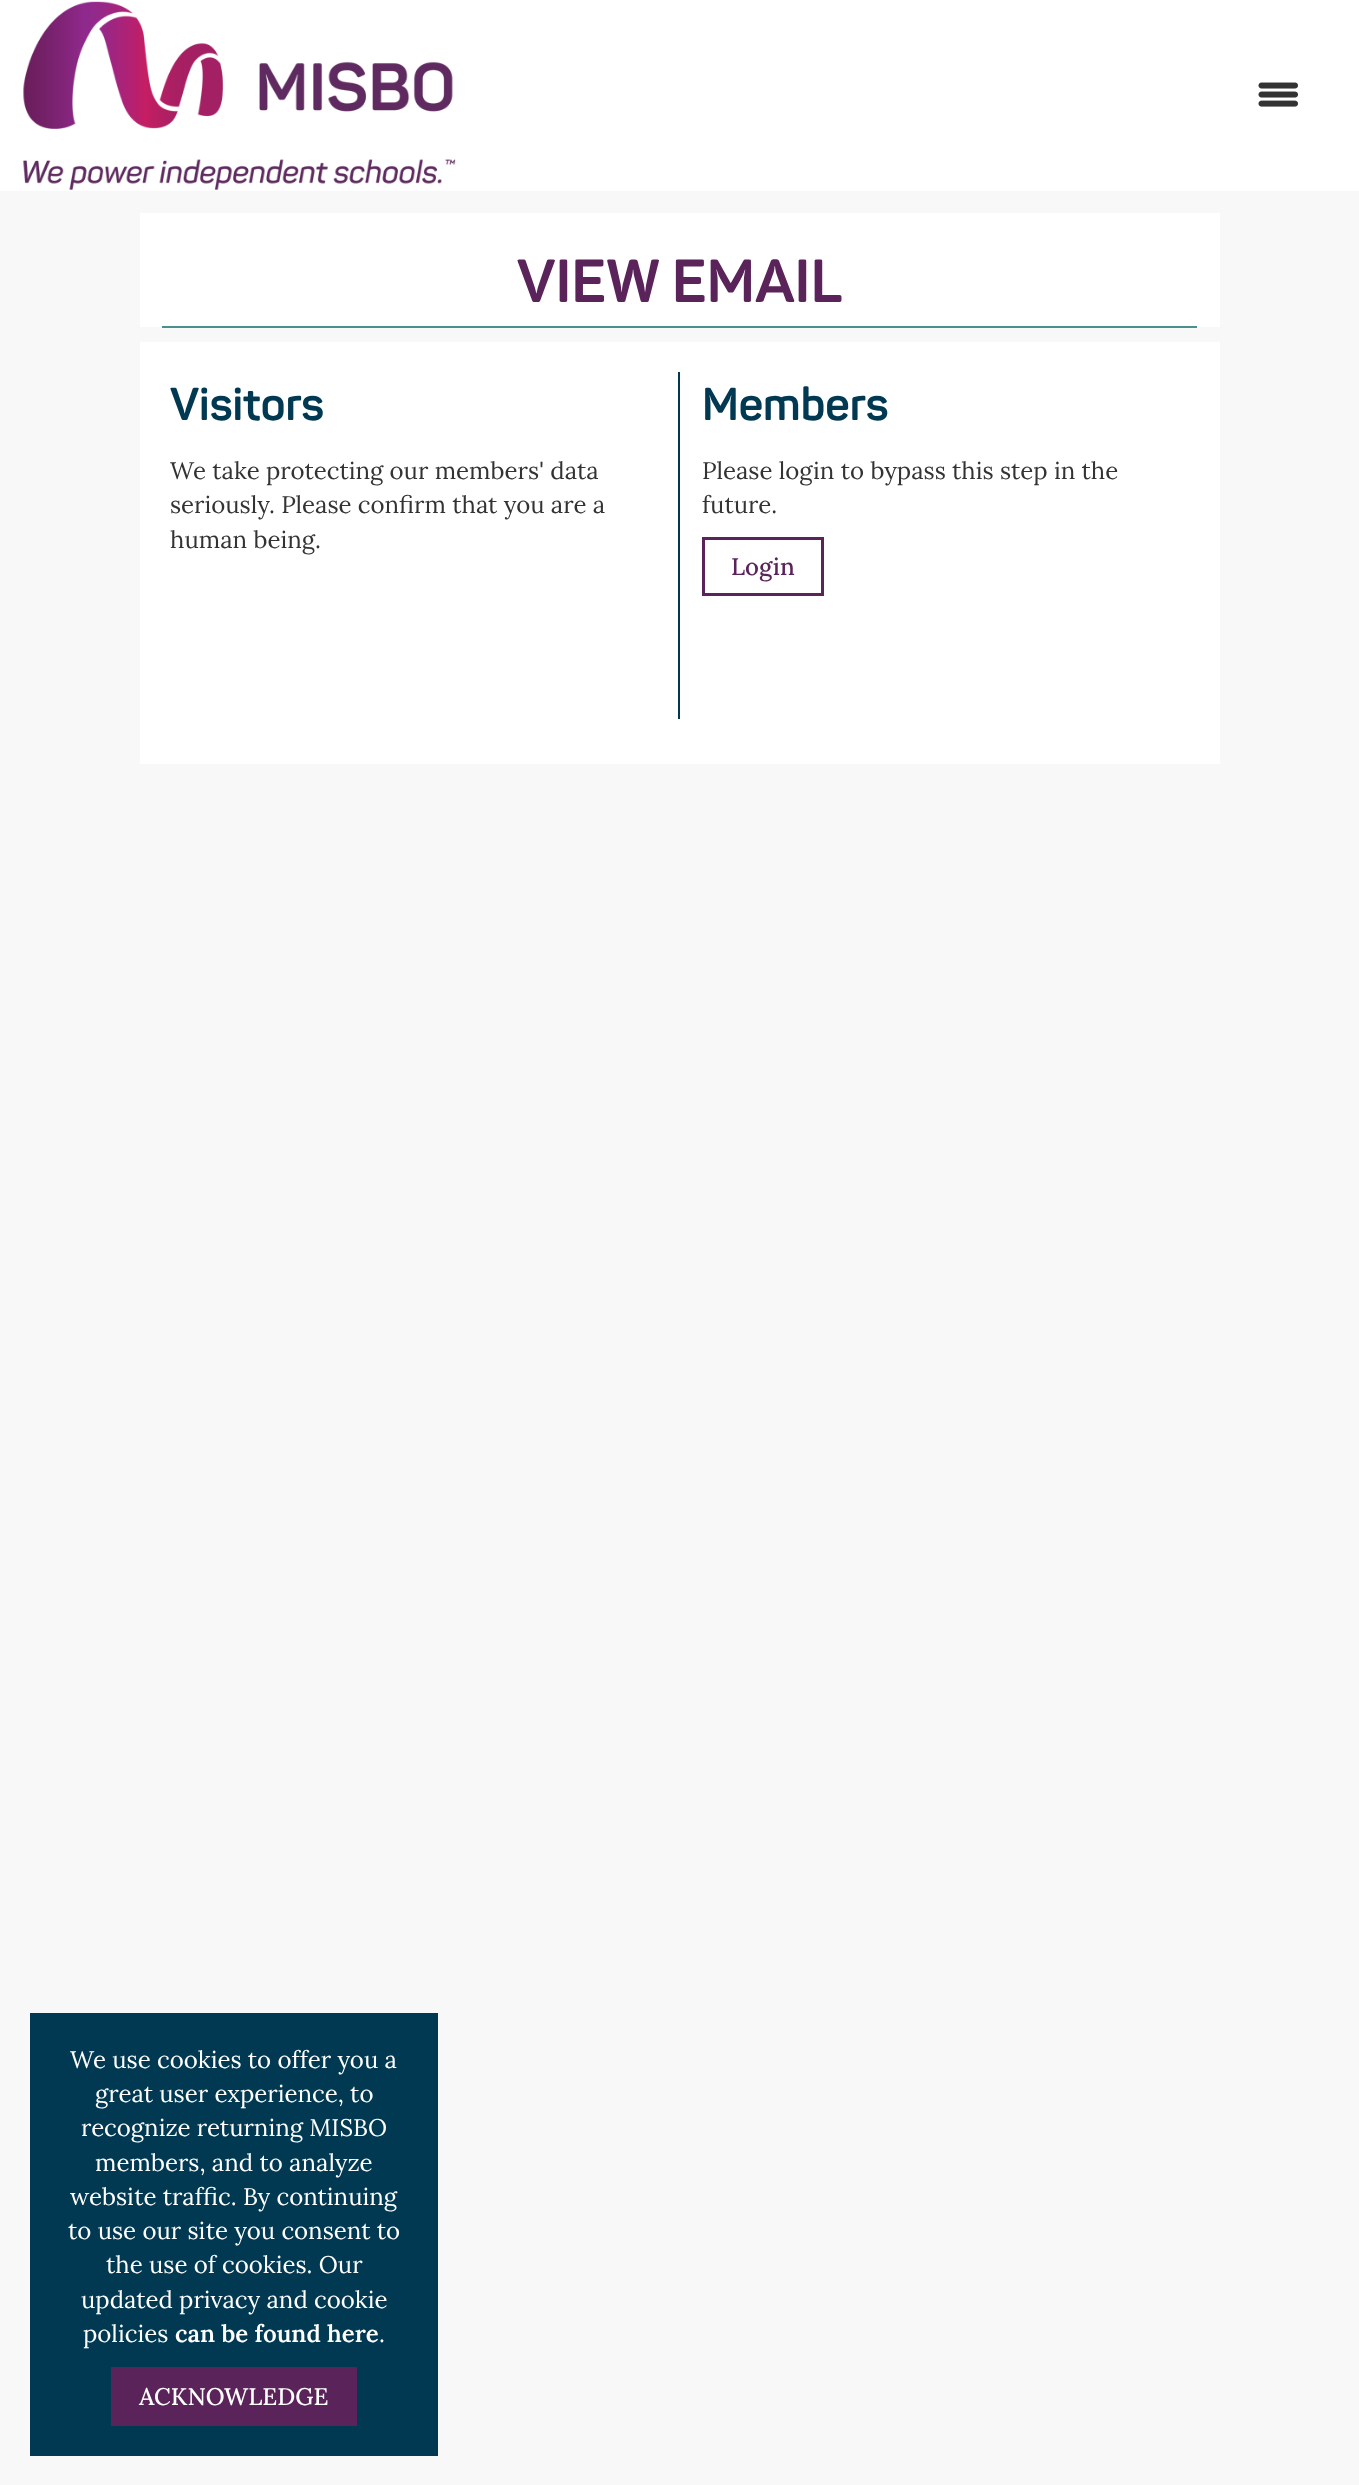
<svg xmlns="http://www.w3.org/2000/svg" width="1359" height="2485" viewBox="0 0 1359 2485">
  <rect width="100%" height="100%" fill="#f8f8f8"/>
  <path d="M0 0h1359v191H0z" fill="#fff"/>
  <image x="23" y="1" width="433" height="189" href="img/1.png"/>
  <image x="1258" y="82" width="40" height="25" href="img/2.png"/>
  <path d="M140 213h1080v114H140z" fill="#fff"/>
  <path d="M162 326h1035v2H162z" fill="#47908c"/>
  <path d="M140 342h1080v422H140z" fill="#fff"/>
  <path d="M678 372h2v347H678z" fill="#023952"/>
  <path d="M703.5 538.5h119v56H703.5z" fill="none" stroke="#5a245a" stroke-width="3"/>
  <path d="M30 2013h408v443H30z" fill="#023952"/>
  <path d="M111 2367h246v59H111z" fill="#5a245a"/>
  <text x="517" y="302" font-family="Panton" font-size="60" font-weight="bold" fill="#5a245a">VIEW EMAIL</text>
  <text x="170" y="420" font-family="Panton" font-size="45.5" font-weight="bold" fill="#023952">Visitors</text>
  <g font-family="Lora" font-size="24" fill="#333">
    <text x="170" y="479">We take protecting our members' data</text>
    <text x="170" y="513">seriously. Please confirm that you are a</text>
    <text x="170" y="548">human being.</text>
  </g>
  <text x="702" y="420" font-family="Panton" font-size="45.5" font-weight="bold" fill="#023952">Members</text>
  <g font-family="Lora" font-size="24" fill="#333">
    <text x="702" y="479">Please login to bypass this step in the</text>
    <text x="702" y="513">future.</text>
  </g>
  <text x="731" y="575" font-family="Lora" font-size="24" font-weight="500" fill="#5a245a">Login</text>
  <g font-family="Lora" font-size="24" fill="#fff">
    <text x="70" y="2068">We use cookies to offer you a</text>
    <text x="95" y="2102">great user experience, to</text>
    <text x="81" y="2136">recognize returning MISBO</text>
    <text x="95" y="2171">members, and to analyze</text>
    <text x="70" y="2205">website traffic. By continuing</text>
    <text x="68" y="2239">to use our site you consent to</text>
    <text x="106" y="2273">the use of cookies. Our</text>
    <text x="81" y="2308">updated privacy and cookie</text>
    <text x="83" y="2342">policies</text>
  </g>
  <text x="175" y="2342" font-family="Lora" font-size="24" font-weight="600" fill="#fff">can be found here</text>
  <text x="379" y="2342" font-family="Lora" font-size="24" fill="#fff">.</text>
  <text x="139" y="2405" font-family="Lora" font-size="24" font-weight="500" fill="#fff">ACKNOWLEDGE</text>
</svg>
